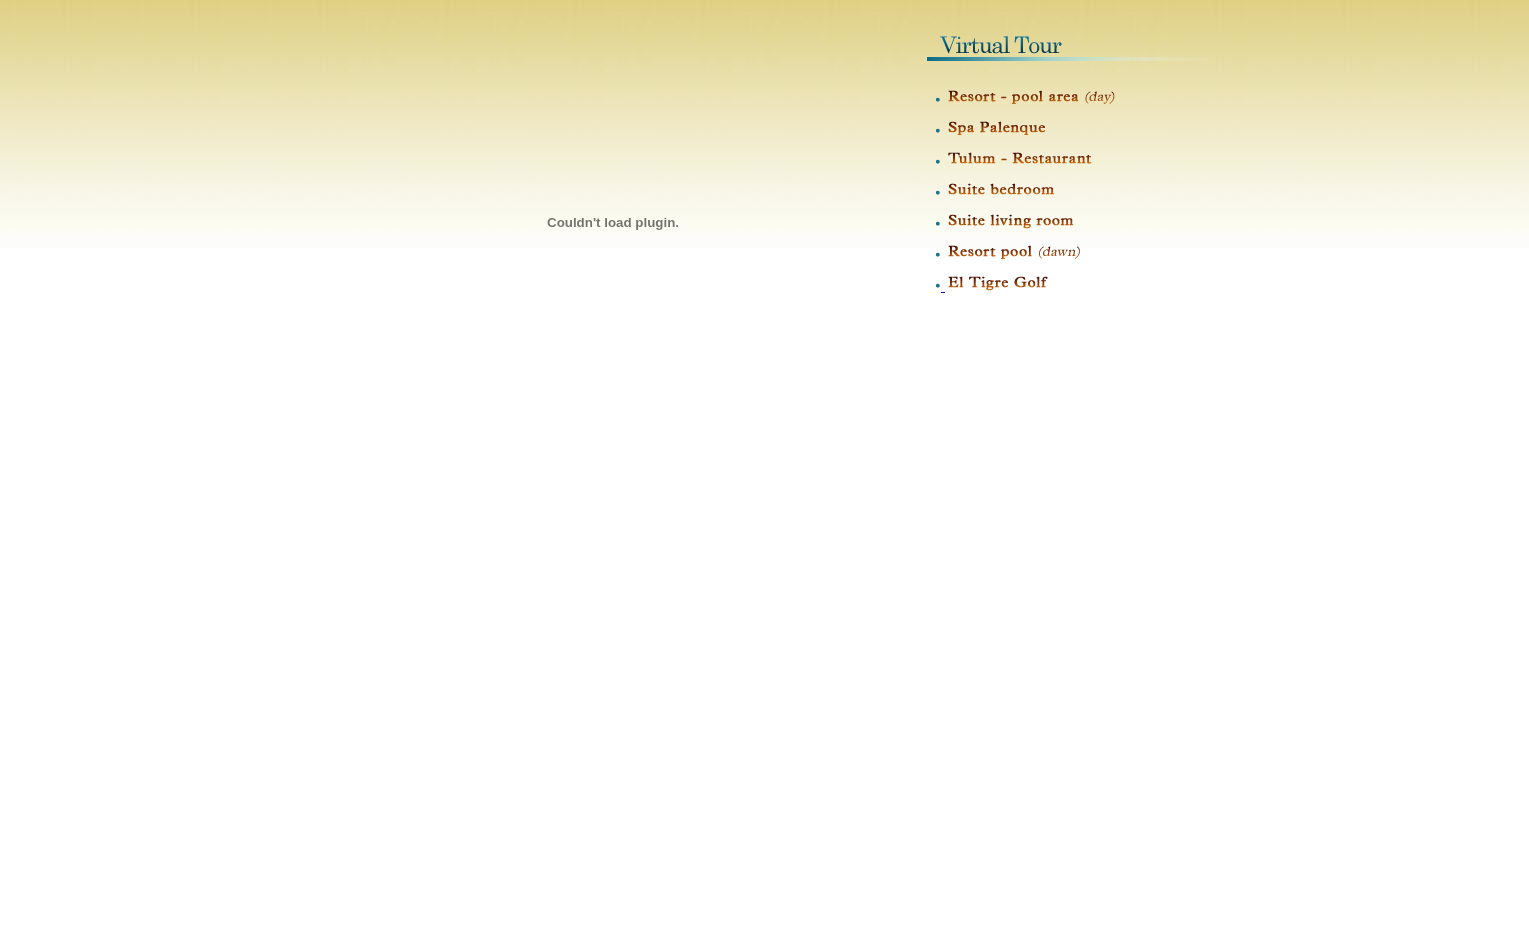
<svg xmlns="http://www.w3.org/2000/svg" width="1529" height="926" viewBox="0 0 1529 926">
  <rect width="100%" height="100%" fill="#fff"/>
  <image x="0" y="0" width="1529" height="248" href="img/1.png"/>
  <image x="344" y="15" width="814" height="51" href="img/2.png"/>
  <image x="547" y="218" width="131" height="12" href="img/3.png"/>
  <image x="927" y="36" width="282" height="25" href="img/4.png"/>
  <image x="948" y="90" width="167" height="14" href="img/5.png"/>
  <image x="948" y="121" width="97" height="14" href="img/6.png"/>
  <image x="948" y="152" width="144" height="12" href="img/7.png"/>
  <image x="948" y="183" width="106" height="12" href="img/8.png"/>
  <image x="948" y="214" width="126" height="15" href="img/9.png"/>
  <image x="948" y="245" width="132" height="14" href="img/10.png"/>
  <image x="948" y="276" width="100" height="15" href="img/11.png"/>
  <path d="M941 292h4v1H941z" fill="#00e"/>
  <g font-family="Liberation Serif" font-size="16" fill="#19748b">
    <text x="935" y="105">•</text>
    <text x="935" y="136">•</text>
    <text x="935" y="167">•</text>
    <text x="935" y="198">•</text>
    <text x="935" y="229">•</text>
    <text x="935" y="260">•</text>
    <text x="935" y="291">•</text>
  </g>
</svg>
